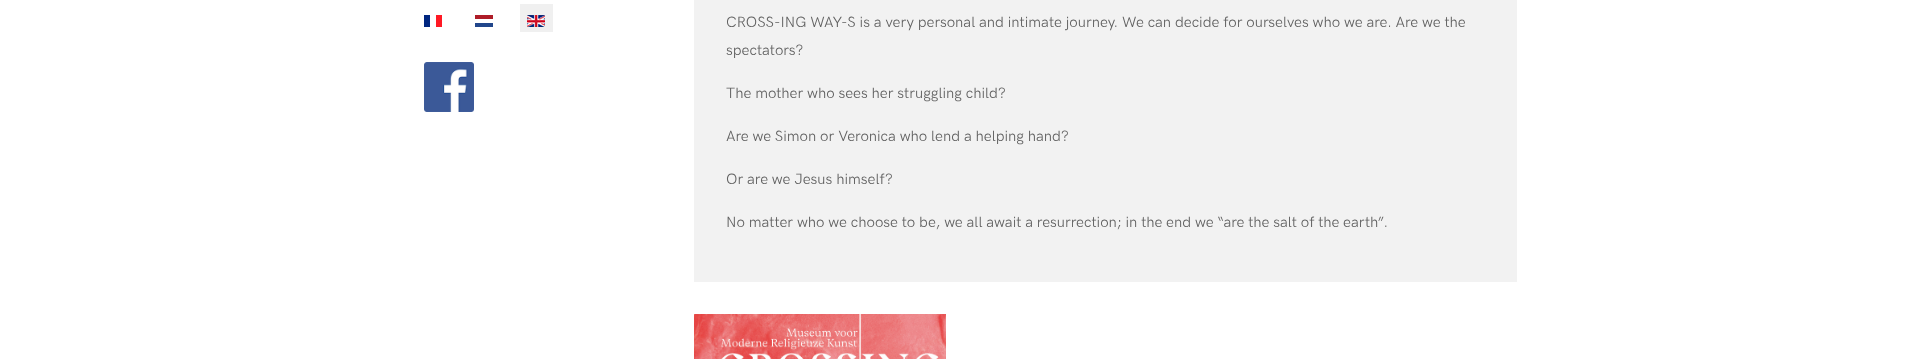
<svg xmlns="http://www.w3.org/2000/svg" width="1925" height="359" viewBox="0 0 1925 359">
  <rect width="100%" height="100%" fill="#fff"/>
  <image x="424" y="15" width="18" height="12" href="img/1.png"/>
  <image x="475" y="15" width="18" height="12" href="img/2.png"/>
  <path d="M520 4h33v28H520z" fill="#f0f0f0"/>
  <image x="527" y="15" width="18" height="12" href="img/3.png"/>
  <image x="424" y="62" width="50" height="50" href="img/4.png"/>
  <path d="M694 0h823v282H694z" fill="#f2f2f2"/>
  <image x="694" y="314" width="252" height="45" href="img/5.png"/>
  <g font-family="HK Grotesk" font-size="15" fill="#616161">
    <text x="726" y="27">CROSS-ING WAY-S is a very personal and intimate journey. We can decide for ourselves who we are. Are we the</text>
    <text x="726" y="55">spectators?</text>
    <text x="726" y="98">The mother who sees her struggling child?</text>
    <text x="726" y="141">Are we Simon or Veronica who lend a helping hand?</text>
    <text x="726" y="184">Or are we Jesus himself?</text>
    <text x="726" y="227">No matter who we choose to be, we all await a resurrection; in the end we “are the salt of the earth”.</text>
  </g>
</svg>
